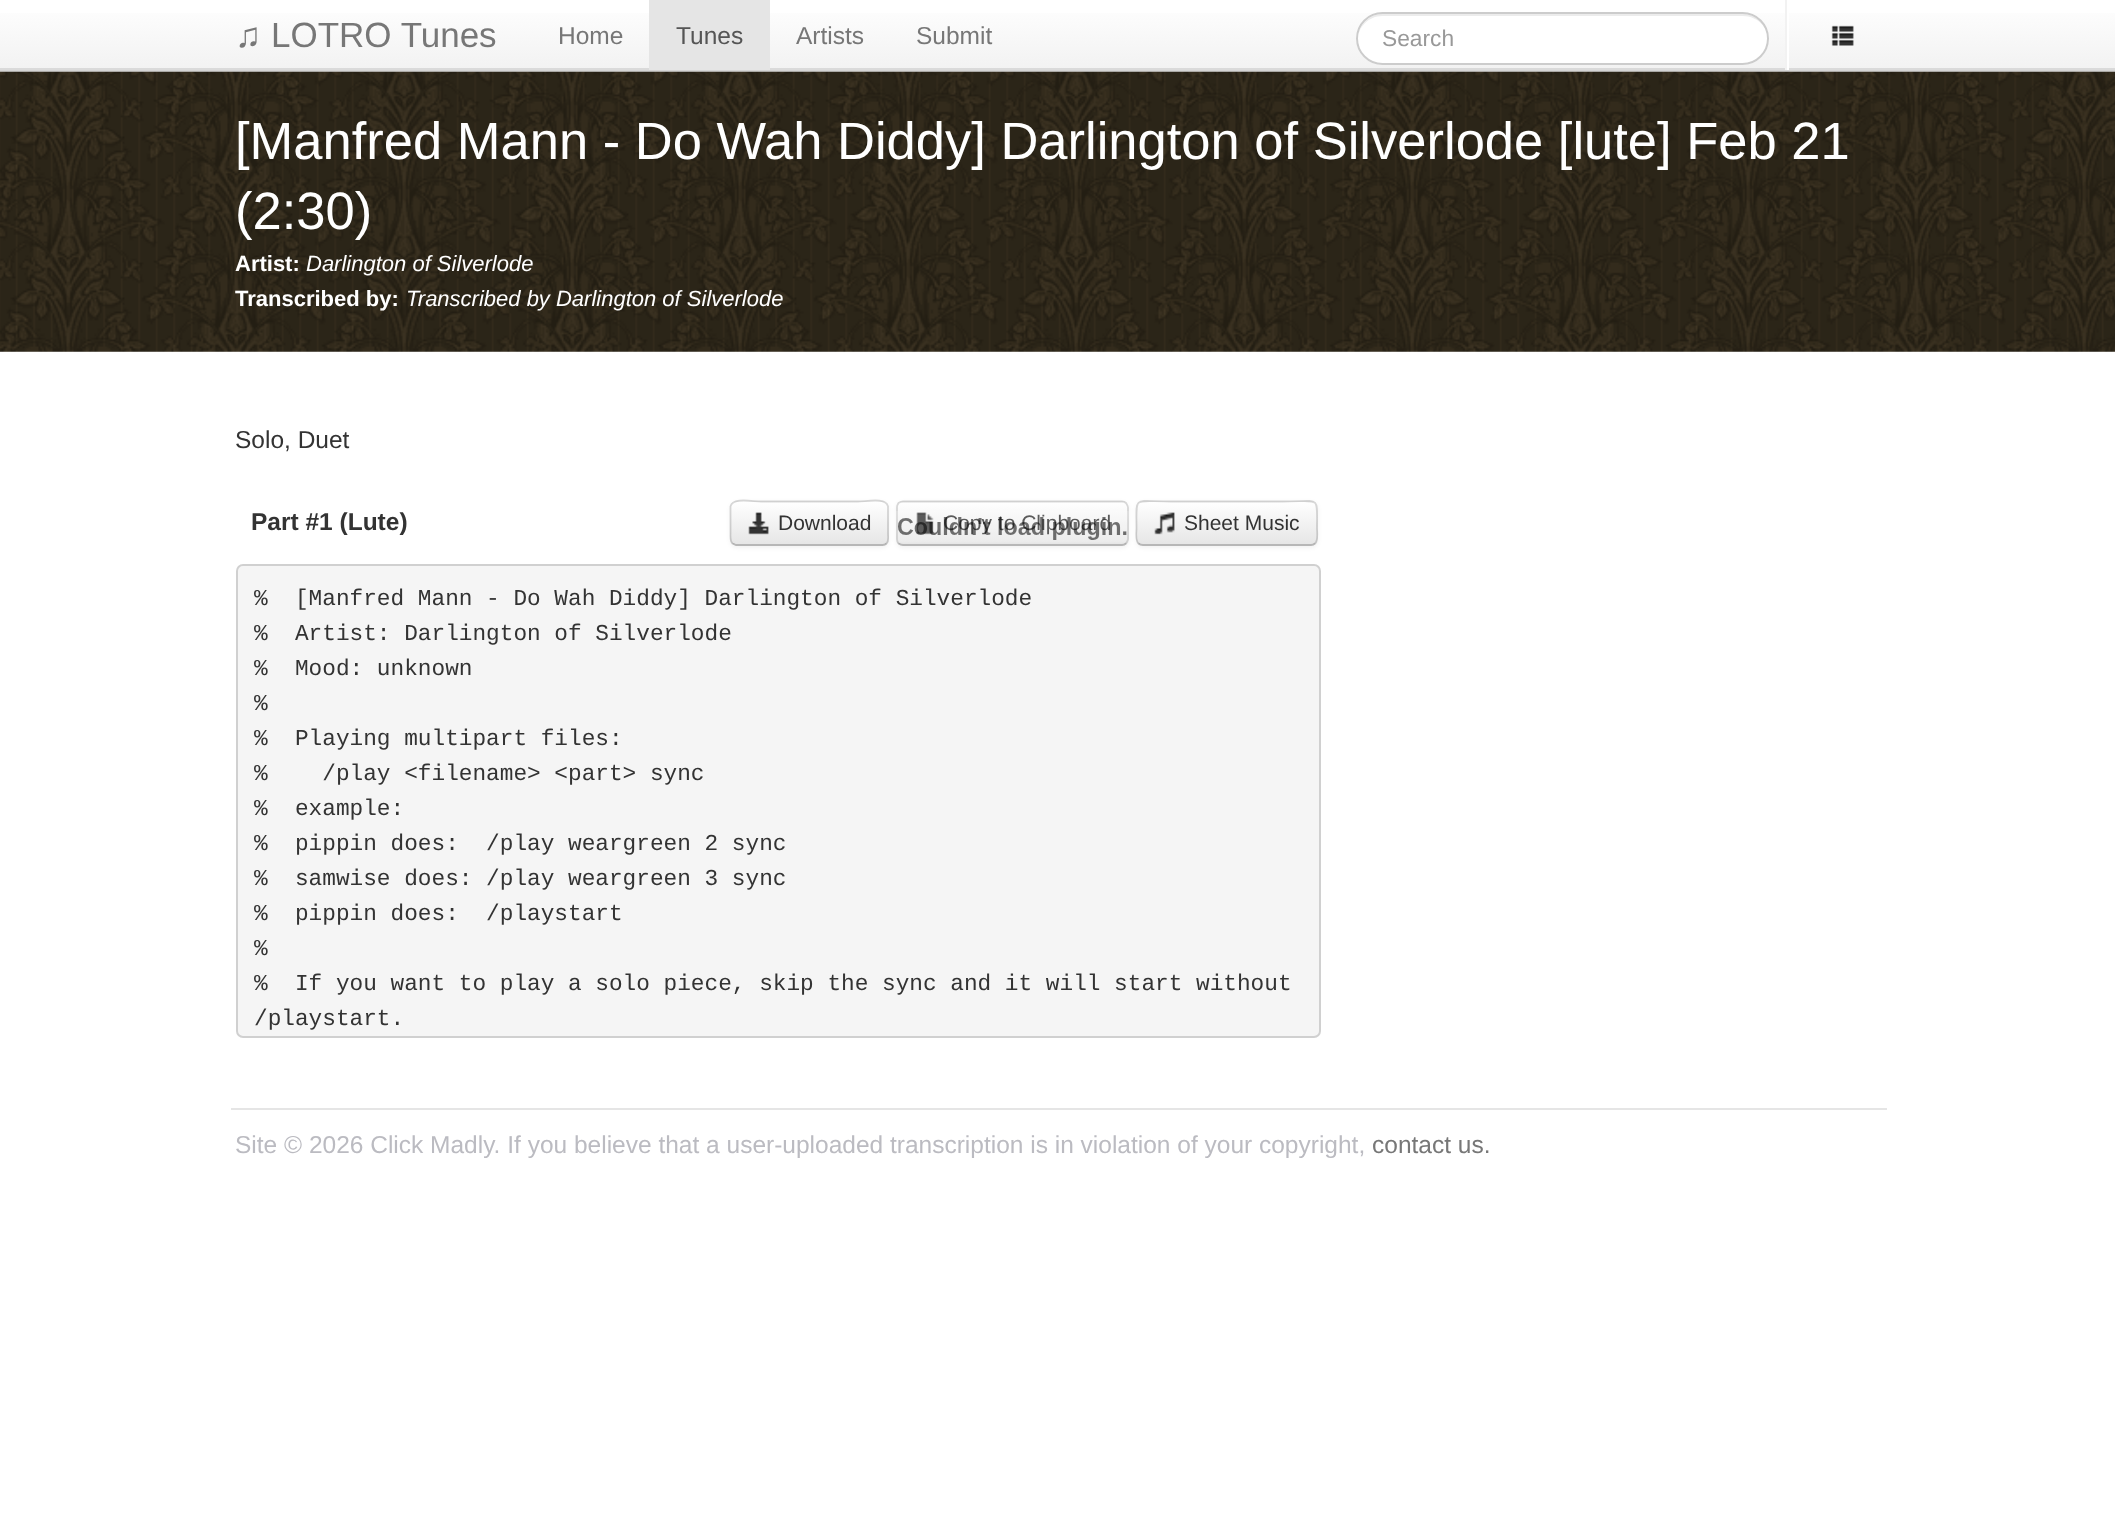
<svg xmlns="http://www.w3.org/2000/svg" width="2115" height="1524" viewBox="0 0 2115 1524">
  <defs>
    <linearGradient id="g1" gradientUnits="userSpaceOnUse" x1="1058" y1="0" x2="1058" y2="70"><stop offset="0" stop-color="#fff"/><stop offset="1" stop-color="#f2f2f2"/></linearGradient>
    <clipPath id="clip1"><rect x="730" y="501" width="159" height="45" rx="7"/></clipPath>
    <linearGradient id="g2" gradientUnits="userSpaceOnUse" x1="809" y1="502" x2="809" y2="544"><stop offset="0" stop-color="#fff"/><stop offset="1" stop-color="#e6e6e6"/></linearGradient>
    <clipPath id="clip2"><rect x="1136" y="501" width="182" height="45" rx="7"/></clipPath>
    <linearGradient id="g3" gradientUnits="userSpaceOnUse" x1="1227" y1="502" x2="1227" y2="544"><stop offset="0" stop-color="#fff"/><stop offset="1" stop-color="#e6e6e6"/></linearGradient>
    <clipPath id="clip3"><rect x="896" y="501" width="233" height="45" rx="7"/></clipPath>
    <linearGradient id="g4" gradientUnits="userSpaceOnUse" x1="1012" y1="502" x2="1012" y2="544"><stop offset="0" stop-color="#fff"/><stop offset="1" stop-color="#e6e6e6"/></linearGradient>
  </defs>
  <rect width="100%" height="100%" fill="#fff"/>
  <path d="M0 13h2115v55H0z" fill="url(#g1)"/>
  <path d="M0 68h2115v2H0z" fill="#dadada"/>
  <path d="M0 70h2115v2H0z" fill="#d4d4d4"/>
  <path d="M649 0h121v70H649z" fill="#e5e5e5"/>
  <rect x="1356" y="12" width="413" height="53" rx="26.5" fill="#fff"/>
  <path d="M1382 16H1743C1757 16 1768 27 1768 39C1768 26 1757 14 1744 14H1382C1369 14 1358 26 1358 39C1358 27 1369 16 1382 16Z" fill="#ececec"/>
  <rect x="1357" y="13" width="411" height="51" rx="25.5" fill="none" stroke="#ccc" stroke-width="2"/>
  <path d="M1787 13h2v57H1787z" fill="#fff"/>
  <path d="M1785 0h2v70H1785z" fill="#f2f2f2"/>
  <image x="1831" y="25" width="23" height="21" href="img/1.png"/>
  <image x="0" y="71" width="2115" height="281" href="img/2.png"/>
  <rect x="730" y="502" width="159" height="46" rx="7" fill="#0000000d" filter="blur(2px)"/>
  <rect x="730" y="501" width="159" height="45" rx="7" fill="#f5f5f5"/>
  <g clip-path="url(#clip1)">
    <path d="M730 502h159v42H730z" fill="url(#g2)"/>
  </g>
  <path d="M886.5 543.5C885.5 544.5 884 545 882.5 545H736L732.5 543.5" fill="none" stroke="#00000040" stroke-width="1.8"/>
  <rect x="1136" y="502" width="182" height="46" rx="7" fill="#0000000d" filter="blur(2px)"/>
  <rect x="1136" y="501" width="182" height="45" rx="7" fill="#f5f5f5"/>
  <g clip-path="url(#clip2)">
    <path d="M1136 502h182v42H1136z" fill="url(#g3)"/>
  </g>
  <path d="M1315 543.5C1314 544.5 1312.5 545 1311 545H1143C1141 545 1139.5 544.5 1138.5 543.5" fill="none" stroke="#00000040" stroke-width="1.8"/>
  <path d="M1138.5 543.5C1135 540 1136.5 532.5 1136.5 528.5C1136.5 494.5 1132.5 501.5 1171 501.5H1283C1321 501.5 1317 494.5 1317 528.5C1317 532.5 1318.5 540 1315 543.5" fill="none" stroke="#00000026" stroke-width="1.8"/>
  <rect x="896" y="502" width="233" height="46" rx="7" fill="#0000000d" filter="blur(2px)"/>
  <path d="M732.5 543.5C730 541 730.5 537 730.5 534V506.5C732.5 497 752.5 501.5 761 501.5H858C866.5 501.5 886 497 888 506.5V534C888 537 889 541 886.5 543.5" fill="none" stroke="#00000026" stroke-width="1.8"/>
  <image x="748" y="512" width="21" height="23" href="img/3.png"/>
  <rect x="896" y="501" width="233" height="45" rx="7" fill="#f5f5f5"/>
  <g clip-path="url(#clip3)">
    <path d="M896 502h233v42H896z" fill="url(#g4)"/>
  </g>
  <path d="M1126 543.5C1125 544.5 1123.5 545 1122 545H903C901.5 545 900 544.5 898.5 543.5" fill="none" stroke="#00000040" stroke-width="1.8"/>
  <path d="M898.5 543.5C897.5 542 897 540.5 897 539V507.5C897 506 897.5 504.5 898.5 503C900 502 901.5 501.5 903 501.5H1122C1123.5 501.5 1125 502 1126 503C1127 504.5 1128 506 1128 507.5V539C1128 540.5 1127 542 1126 543.5" fill="none" stroke="#00000026" stroke-width="1.8"/>
  <image x="916" y="512" width="18" height="23" href="img/5.png"/>
  <image x="1154" y="512" width="21" height="23" href="img/6.png"/>
  <rect x="236" y="564" width="1085" height="474" rx="7" fill="#f5f5f5"/>
  <rect x="237" y="565" width="1083" height="472" rx="6" fill="none" stroke="#00000026" stroke-width="2"/>
  <path d="M231 1108h1656v2H231z" fill="#e5e5e5"/>
  <text x="235" y="47" font-family="Liberation Sans" font-size="35" fill="#777">♫ LOTRO Tunes</text>
  <text x="558" y="44" font-family="Liberation Sans" font-size="24.5" fill="#777">Home</text>
  <text x="676" y="44" font-family="Liberation Sans" font-size="24.5" fill="#555">Tunes</text>
  <g font-family="Liberation Sans" font-size="24.5" fill="#777">
    <text x="796" y="44">Artists</text>
    <text x="916" y="44">Submit</text>
  </g>
  <text x="1382" y="46" font-family="Liberation Sans" font-size="22.75" fill="#999">Search</text>
  <g font-family="Liberation Sans" font-size="52.5" fill="#fff">
    <text x="235" y="159">[Manfred Mann - Do Wah Diddy] Darlington of Silverlode [lute] Feb 21</text>
    <text x="235" y="229">(2:30)</text>
  </g>
  <text x="235" y="271" font-family="Liberation Sans" font-size="22" font-weight="bold" fill="#fff">Artist:</text>
  <text x="306" y="271" font-family="Liberation Sans" font-size="22" font-style="italic" fill="#fff">Darlington of Silverlode</text>
  <text x="235" y="306" font-family="Liberation Sans" font-size="22" font-weight="bold" fill="#fff">Transcribed by:</text>
  <text x="406" y="306" font-family="Liberation Sans" font-size="22" font-style="italic" fill="#fff">Transcribed by Darlington of Silverlode</text>
  <text x="235" y="448" font-family="Liberation Sans" font-size="24.5" fill="#333">Solo, Duet</text>
  <text x="251" y="530" font-family="Liberation Sans" font-size="24.5" font-weight="bold" fill="#333">Part #1 (Lute)</text>
  <g font-family="Liberation Sans" font-size="21" fill="#333">
    <text x="778" y="530">Download</text>
    <text x="943" y="530">Copy to Clipboard</text>
  </g>
  <image x="896" y="511" width="233" height="32" href="img/4.png"/>
  <text x="1184" y="530" font-family="Liberation Sans" font-size="21" fill="#333">Sheet Music</text>
  <g font-family="Liberation Mono" font-size="22.75" fill="#333">
    <text x="254" y="605" xml:space="preserve">%  [Manfred Mann - Do Wah Diddy] Darlington of Silverlode</text>
    <text x="254" y="640" xml:space="preserve">%  Artist: Darlington of Silverlode</text>
    <text x="254" y="675" xml:space="preserve">%  Mood: unknown</text>
    <text x="254" y="710">%</text>
    <text x="254" y="745" xml:space="preserve">%  Playing multipart files:</text>
    <text x="254" y="780" xml:space="preserve">%    /play &lt;filename&gt; &lt;part&gt; sync</text>
    <text x="254" y="815" xml:space="preserve">%  example:</text>
    <text x="254" y="850" xml:space="preserve">%  pippin does:  /play weargreen 2 sync</text>
    <text x="254" y="885" xml:space="preserve">%  samwise does: /play weargreen 3 sync</text>
    <text x="254" y="920" xml:space="preserve">%  pippin does:  /playstart</text>
    <text x="254" y="955">%</text>
    <text x="254" y="990" xml:space="preserve">%  If you want to play a solo piece, skip the sync and it will start without</text>
    <text x="254" y="1025">/playstart.</text>
  </g>
  <text x="235" y="1153" font-family="Liberation Sans" font-size="24.5" fill="#bbbbc1">Site © 2026 Click Madly. If you believe that a user-uploaded transcription is in violation of your copyright,</text>
  <text x="1372" y="1153" font-family="Liberation Sans" font-size="24.5" fill="#777">contact us.</text>
</svg>
